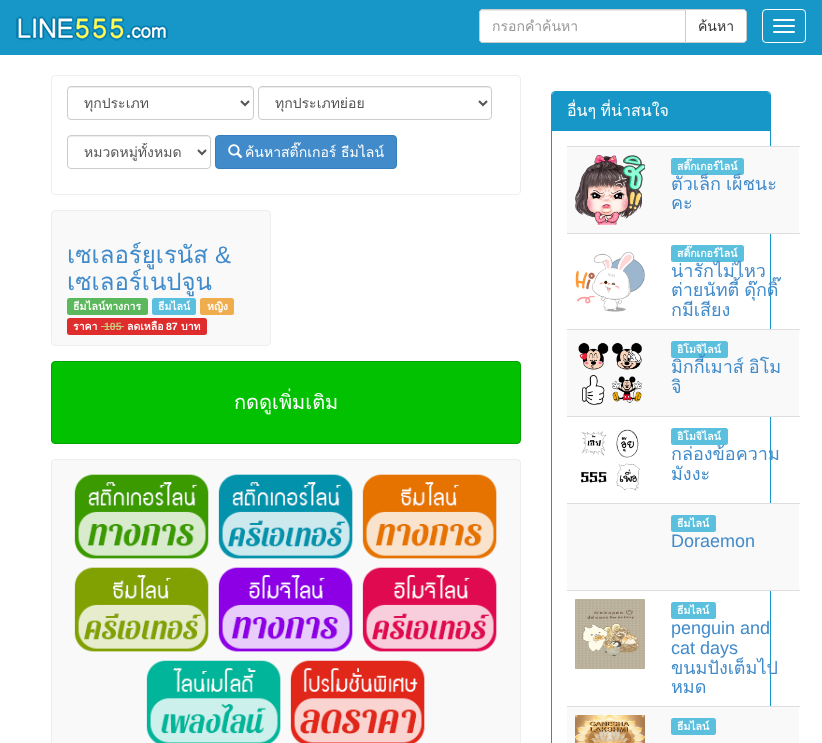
<svg xmlns="http://www.w3.org/2000/svg" width="822" height="743" viewBox="0 0 822 743">
  <defs>
    <clipPath id="clip1"><path d="M84 94h141v18H84z"/></clipPath>
    <clipPath id="clip2"><path d="M275 94h188v18H275z"/></clipPath>
    <clipPath id="clip3"><path d="M84 143h98v18H84z"/></clipPath>
  </defs>
  <rect width="100%" height="100%" fill="#fff"/>
  <path d="M0 0h822v55H0z" fill="#1797c7"/>
  <image x="16" y="16" width="152" height="25" href="img/1.png"/>
  <path d="M685.5 9.5H743C745 9.5 746.5 11 746.5 13V39C746.5 41 745 42.5 743 42.5H685.5Z" fill="#fff" stroke="#ccc"/>
  <path d="M483 9H686V43H483C481 43 479 41 479 39V13C479 11 481 9 483 9Z" fill="#fff"/>
  <path d="M483 11H685V10H482C480 11 480 12 480 14C480 12 481 11 483 11Z" fill="#ececec"/>
  <path d="M483 9.5H685.5V42.5H483C481 42.5 479.5 41 479.5 39V13C479.5 11 481 9.5 483 9.5Z" fill="none" stroke="#ccc"/>
  <rect x="762.5" y="9.5" width="43" height="33" rx="3.5" fill="none" stroke="#fff"/>
  <rect x="773" y="19" width="22" height="2" rx="1" fill="#fff"/>
  <rect x="773" y="25" width="22" height="2" rx="1" fill="#fff"/>
  <rect x="773" y="31" width="22" height="2" rx="1" fill="#fff"/>
  <rect x="51.5" y="75.5" width="469" height="119" rx="3.5" fill="none" stroke="#eee"/>
  <path d="M71 88H250L252 89L253 91C253 89 252 87 250 87H70C68 88 68 89 68 91C68 89 69 88 71 88Z" fill="#ececec"/>
  <rect x="67.5" y="86.5" width="186" height="33" rx="3.5" fill="none" stroke="#ccc"/>
  <path d="M241 101L245 105L249 101" fill="none" stroke="#555" stroke-width="2"/>
  <path d="M262 88H488C490 88 491 89 491 91C491 89 490 87 488 87H262C260 87 259 89 259 91C259 89 260 88 262 88Z" fill="#ececec"/>
  <rect x="258.5" y="86.5" width="233" height="33" rx="3.5" fill="none" stroke="#ccc"/>
  <path d="M479 101L483 105L487 101" fill="none" stroke="#555" stroke-width="2"/>
  <path d="M71 137H207C209 137 210 138 210 140V139C210 137 209 136 207 136H71C69 136 68 137 68 139V140C68 138 69 137 71 137Z" fill="#ececec"/>
  <rect x="67.5" y="135.5" width="143" height="33" rx="3.5" fill="none" stroke="#ccc"/>
  <path d="M198 150L202 154L206 150" fill="none" stroke="#555" stroke-width="2"/>
  <rect x="215.5" y="135.5" width="181" height="33" rx="3.5" fill="#428bca" stroke="#357ebd"/>
  <rect x="51.5" y="210.5" width="219" height="135" rx="3.5" fill="#f9f9f9" stroke="#eee"/>
  <rect x="67" y="298" width="81" height="17" rx="2.5" fill="#5cb85c"/>
  <rect x="152" y="298" width="44" height="17" rx="2.5" fill="#5bc0de"/>
  <rect x="200" y="298" width="34" height="17" rx="2.5" fill="#f0ad4e"/>
  <path d="M69.5 318H101V335H69.5C68 335 67 334 67 332.5V320.5C67 319 68 318 69.5 318Z" fill="#df2d2d"/>
  <path d="M101 318h77v17H101z" fill="#df2d2d"/>
  <path d="M101 326h23v1H101z" fill="#c9c67e"/>
  <path d="M178 318H204.5C206 318 207 319 207 320.5V332.5C207 334 206 335 204.5 335H178Z" fill="#df2d2d"/>
  <rect x="51.5" y="361.5" width="469" height="82" rx="3.5" fill="#01c101" stroke="#01a301"/>
  <rect x="51.5" y="459.5" width="469" height="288" rx="3.5" fill="#f9f9f9" stroke="#eee"/>
  <image x="74" y="474" width="135" height="85" href="img/3.png"/>
  <image x="218" y="474" width="135" height="85" href="img/4.png"/>
  <image x="362" y="474" width="135" height="85" href="img/5.png"/>
  <image x="74" y="567" width="135" height="85" href="img/6.png"/>
  <image x="218" y="567" width="135" height="85" href="img/7.png"/>
  <image x="362" y="567" width="135" height="85" href="img/8.png"/>
  <image x="146" y="660" width="135" height="83" href="img/9.png"/>
  <image x="290" y="660" width="135" height="83" href="img/10.png"/>
  <rect x="551.5" y="91.5" width="219" height="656" rx="3.5" fill="none" stroke="#1797c7"/>
  <path d="M555 92H767C768.5 92 770 93.5 770 95V131H552V95C552 93.5 553.5 92 555 92Z" fill="#1797c7"/>
  <path d="M567 147h232v86H567z" fill="#f9f9f9"/>
  <image x="575" y="155" width="70" height="70" href="img/11.png"/>
  <path d="M567 146h233v1H567z" fill="#ddd"/>
  <rect x="671" y="158" width="73" height="17" rx="2.5" fill="#5bc0de"/>
  <image x="575" y="252" width="70" height="60" href="img/12.png"/>
  <path d="M567 233h233v1H567z" fill="#ddd"/>
  <rect x="671" y="245" width="73" height="17" rx="2.5" fill="#5bc0de"/>
  <path d="M567 330h232v86H567z" fill="#f9f9f9"/>
  <image x="578" y="342" width="64" height="63" href="img/13.png"/>
  <path d="M567 329h233v1H567z" fill="#ddd"/>
  <rect x="671" y="341" width="57" height="17" rx="2.5" fill="#5bc0de"/>
  <image x="580" y="429" width="60" height="62" href="img/14.png"/>
  <path d="M567 416h233v1H567z" fill="#ddd"/>
  <rect x="671" y="428" width="57" height="17" rx="2.5" fill="#5bc0de"/>
  <path d="M567 504h232v86H567z" fill="#f9f9f9"/>
  <path d="M567 503h233v1H567z" fill="#ddd"/>
  <rect x="671" y="515" width="45" height="17" rx="2.5" fill="#5bc0de"/>
  <image x="575" y="599" width="70" height="70" href="img/15.png"/>
  <path d="M567 590h233v1H567z" fill="#ddd"/>
  <rect x="671" y="602" width="45" height="17" rx="2.5" fill="#5bc0de"/>
  <path d="M567 707h232v36H567z" fill="#f9f9f9"/>
  <image x="575" y="715" width="70" height="28" href="img/16.png"/>
  <path d="M567 706h233v1H567z" fill="#ddd"/>
  <rect x="671" y="718" width="45" height="17" rx="2.5" fill="#5bc0de"/>
  <text x="492" y="31" font-family="Loma" font-size="14" fill="#999">กรอกคำค้นหา</text>
  <text x="698" y="31" font-family="Loma" font-size="14" fill="#333">ค้นหา</text>
  <g clip-path="url(#clip1)">
    <text x="84" y="108" font-family="Loma" font-size="14" fill="#555">ทุกประเภท</text>
  </g>
  <g clip-path="url(#clip2)">
    <text x="275" y="108" font-family="Loma" font-size="14" fill="#555">ทุกประเภทย่อย</text>
  </g>
  <g clip-path="url(#clip3)">
    <text x="84" y="157" font-family="Loma" font-size="14" fill="#555">หมวดหมู่ทั้งหมด</text>
  </g>
  <text x="245" y="157" font-family="Loma" font-size="14" fill="#fff">ค้นหาสติ๊กเกอร์ ธีมไลน์</text>
  <image x="228" y="144" width="15" height="15" href="img/2.png"/>
  <text x="67" y="263" font-family="Loma" font-size="24" fill="#428bca">เซเลอร์ยูเรนัส</text>
  <text x="215" y="263" font-family="Liberation Sans" font-size="24" fill="#428bca">&amp;</text>
  <text x="67" y="290" font-family="Loma" font-size="24" fill="#428bca">เซเลอร์เนปจูน</text>
  <g font-family="Loma" font-size="10.5" font-weight="bold" fill="#fff">
    <text x="73" y="310">ธีมไลน์ทางการ</text>
    <text x="158" y="310">ธีมไลน์</text>
    <text x="207" y="310">หญิง</text>
    <text x="73" y="330">ราคา</text>
  </g>
  <text x="104" y="330" font-family="Liberation Sans" font-size="10.5" font-weight="bold" fill="#c9c67e">105</text>
  <text x="127" y="330" font-family="Loma" font-size="10.5" font-weight="bold" fill="#fff">ลดเหลือ</text>
  <text x="166" y="330" font-family="Liberation Sans" font-size="10.5" font-weight="bold" fill="#fff">87</text>
  <text x="181" y="330" font-family="Loma" font-size="10.5" font-weight="bold" fill="#fff">บาท</text>
  <text x="234" y="409" font-family="Loma" font-size="20" fill="#fff">กดดูเพิ่มเติม</text>
  <text x="567" y="116" word-spacing="-1" font-family="Loma" font-size="16" fill="#fff">อื่นๆ ที่น่าสนใจ</text>
  <text x="677" y="170" font-family="Loma" font-size="10.5" font-weight="bold" fill="#fff">สติ๊กเกอร์ไลน์</text>
  <g font-family="Loma" font-size="18" fill="#428bca">
    <text x="671" y="190" word-spacing="-1">ตัวเล็ก เผ็ชนะ</text>
    <text x="671" y="209">คะ</text>
  </g>
  <text x="677" y="257" font-family="Loma" font-size="10.5" font-weight="bold" fill="#fff">สติ๊กเกอร์ไลน์</text>
  <g font-family="Loma" font-size="18" fill="#428bca">
    <text x="671" y="277">น่ารักไม่ไหว</text>
    <text x="671" y="296" word-spacing="-1">ต่ายนัทตี้ ดุ๊กดิ๊</text>
    <text x="671" y="316">กมีเสียง</text>
  </g>
  <text x="677" y="353" font-family="Loma" font-size="10.5" font-weight="bold" fill="#fff">อิโมจิไลน์</text>
  <g font-family="Loma" font-size="18" fill="#428bca">
    <text x="671" y="373" word-spacing="-1">มิกกี้เมาส์ อิโม</text>
    <text x="671" y="393">จิ</text>
  </g>
  <text x="677" y="440" font-family="Loma" font-size="10.5" font-weight="bold" fill="#fff">อิโมจิไลน์</text>
  <g font-family="Loma" font-size="18" fill="#428bca">
    <text x="671" y="460">กล่องข้อความ</text>
    <text x="671" y="480">มังงะ</text>
  </g>
  <text x="677" y="527" font-family="Loma" font-size="10.5" font-weight="bold" fill="#fff">ธีมไลน์</text>
  <text x="671" y="547" font-family="Liberation Sans" font-size="18" fill="#428bca">Doraemon</text>
  <text x="677" y="614" font-family="Loma" font-size="10.5" font-weight="bold" fill="#fff">ธีมไลน์</text>
  <g font-family="Liberation Sans" font-size="18" fill="#428bca">
    <text x="671" y="634">penguin and</text>
    <text x="671" y="654">cat days</text>
  </g>
  <g font-family="Loma" font-size="18" fill="#428bca">
    <text x="671" y="674">ขนมปังเต็มไป</text>
    <text x="671" y="693">หมด</text>
  </g>
  <text x="677" y="730" font-family="Loma" font-size="10.5" font-weight="bold" fill="#fff">ธีมไลน์</text>
</svg>
